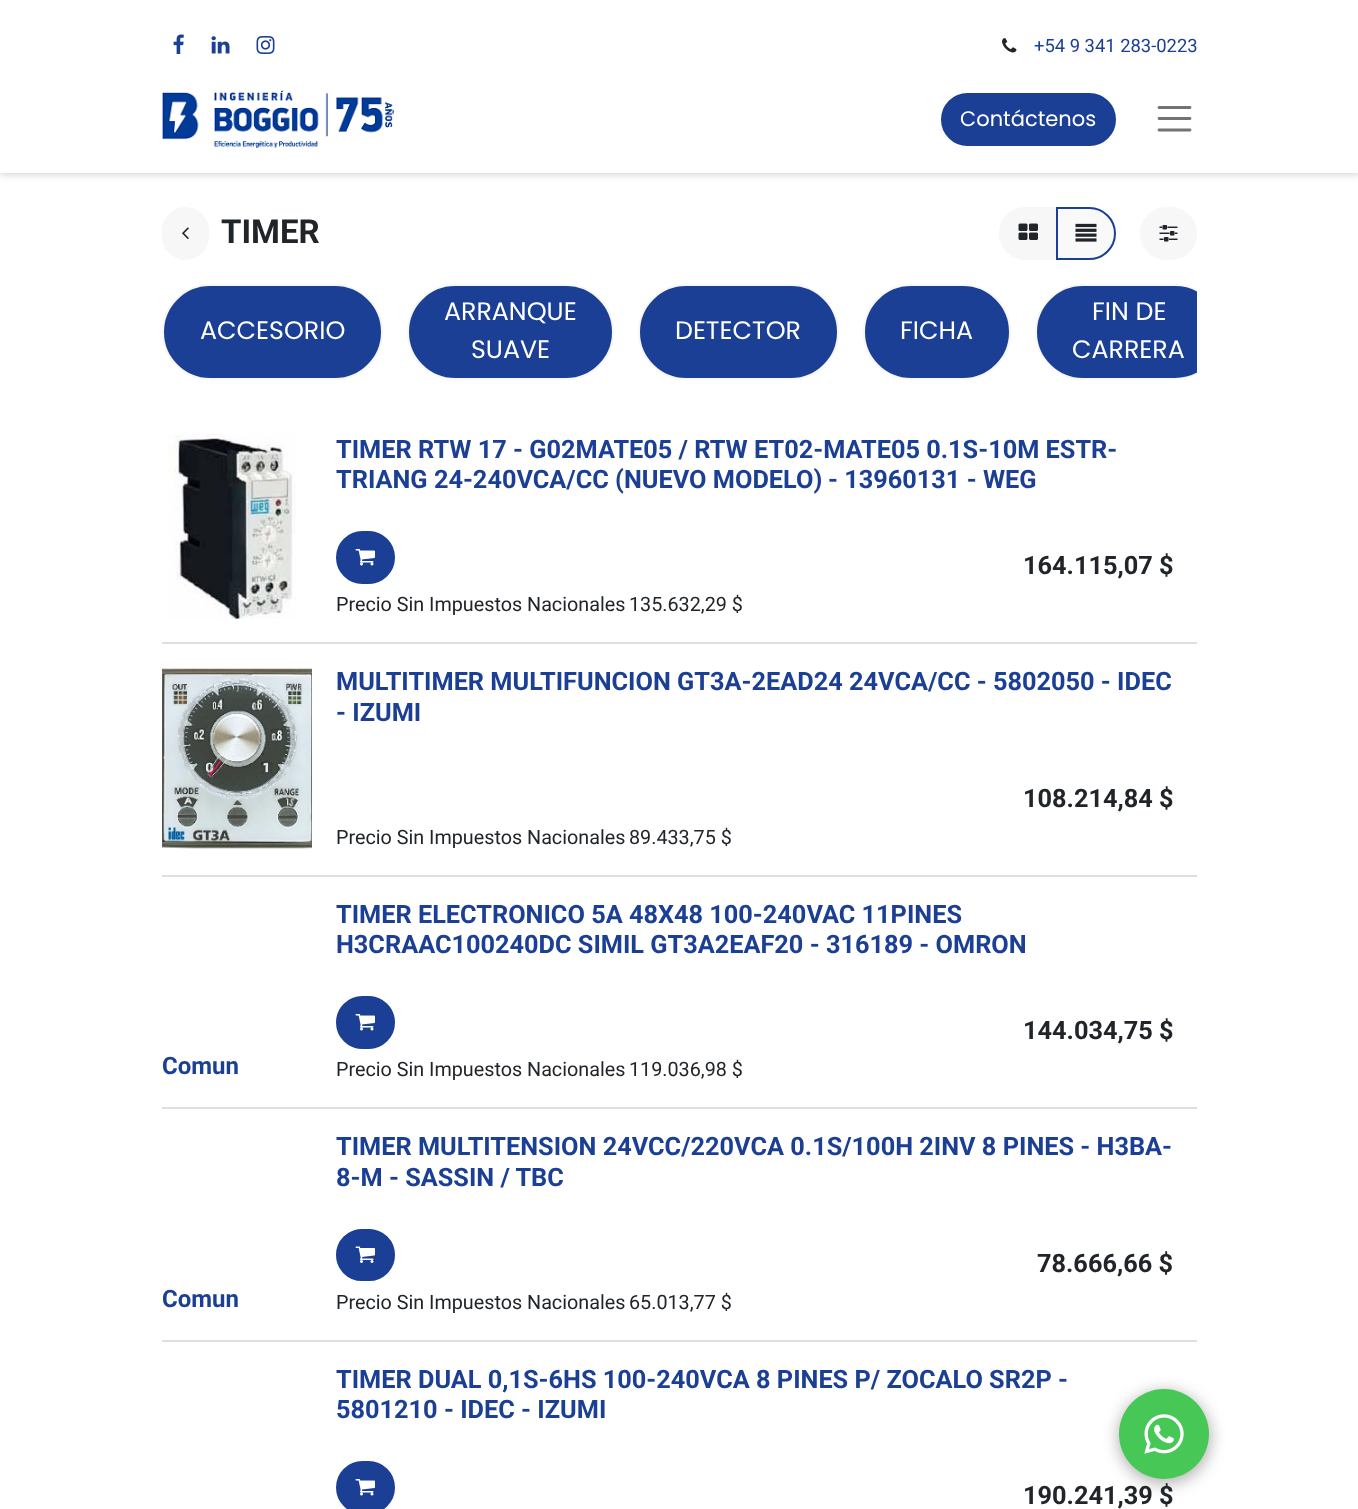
<svg xmlns="http://www.w3.org/2000/svg" width="1358" height="1509" viewBox="0 0 1358 1509">
  <defs>
    <clipPath id="clip1"><path d="M162 284h1035v102H162z"/></clipPath>
  </defs>
  <rect width="100%" height="100%" fill="#fff"/>
  <path d="M0 0h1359v173H0z" fill="#00000040" filter="blur(4px)"/>
  <path d="M0 0h1358v173H0z" fill="#fff"/>
  <image x="173" y="34" width="11" height="20" href="img/1.png"/>
  <image x="211" y="36" width="19" height="18" href="img/2.png"/>
  <image x="256" y="36" width="19" height="18" href="img/3.png"/>
  <image x="1002" y="38" width="15" height="15" href="img/4.png"/>
  <image x="162" y="90" width="233" height="58" href="img/5.png"/>
  <rect x="942" y="94" width="173" height="51" rx="25.5" fill="#1b3f94" stroke="#1b3f94" stroke-width="2"/>
  <path d="M1159 107.5H1190M1159 118.5H1190M1159 130H1190" fill="none" stroke="#737373" stroke-width="2.8" stroke-linecap="round"/>
  <rect x="162" y="207" width="47" height="53" rx="23.5" fill="#f7f7f7"/>
  <image x="182" y="227" width="7" height="12" href="img/6.png"/>
  <path d="M1025.5 207H1058V260H1025.5C1011 260 999 248 999 233.5C999 219 1011 207 1025.5 207Z" fill="#f7f7f7"/>
  <image x="1018" y="223" width="20" height="17" href="img/7.png"/>
  <path d="M1057 208H1089.5C1103.5 208 1115 219.5 1115 233.5C1115 247.5 1103.5 259 1089.5 259H1057Z" fill="#f9f9f9" stroke="#1b3f94" stroke-width="2"/>
  <image x="1075" y="223" width="22" height="19" href="img/8.png"/>
  <rect x="1140" y="207" width="57" height="53" rx="26.5" fill="#f7f7f7"/>
  <image x="1159" y="225" width="19" height="17" href="img/9.png"/>
  <rect x="163" y="285" width="219" height="94" rx="47" fill="#1b3f94" stroke="#f7f7f7" stroke-width="2"/>
  <rect x="408" y="285" width="205" height="94" rx="47" fill="#1b3f94" stroke="#f7f7f7" stroke-width="2"/>
  <rect x="639" y="285" width="199" height="94" rx="47" fill="#1b3f94" stroke="#f7f7f7" stroke-width="2"/>
  <rect x="864" y="285" width="146" height="94" rx="47" fill="#1b3f94" stroke="#f7f7f7" stroke-width="2"/>
  <g clip-path="url(#clip1)">
    <rect x="1036" y="285" width="186" height="94" rx="47" fill="#1b3f94" stroke="#f7f7f7" stroke-width="2"/>
  </g>
  <path d="M162 642h1035v2H162z" fill="#dfdfdf"/>
  <image x="163" y="434" width="133" height="186" href="img/10.png"/>
  <rect x="337" y="532" width="57" height="51" rx="25.5" fill="#1b3f94" stroke="#1b3f94" stroke-width="2"/>
  <image x="355" y="549" width="20" height="17" href="img/11.png"/>
  <path d="M162 875h1035v2H162z" fill="#dfdfdf"/>
  <image x="162" y="667" width="150" height="182" href="img/12.png"/>
  <path d="M162 1107h1035v2H162z" fill="#dfdfdf"/>
  <rect x="337" y="997" width="57" height="51" rx="25.5" fill="#1b3f94" stroke="#1b3f94" stroke-width="2"/>
  <image x="355" y="1014" width="20" height="17" href="img/11.png"/>
  <path d="M162 1340h1035v2H162z" fill="#dfdfdf"/>
  <rect x="337" y="1230" width="57" height="50" rx="25" fill="#1b3f94" stroke="#1b3f94" stroke-width="2"/>
  <image x="355" y="1246" width="20" height="17" href="img/13.png"/>
  <rect x="337" y="1462" width="57" height="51" rx="25.5" fill="#1b3f94" stroke="#1b3f94" stroke-width="2"/>
  <image x="355" y="1479" width="20" height="17" href="img/11.png"/>
  <rect x="1118" y="1391" width="93" height="93" rx="46.5" fill="#b5b5b5" filter="blur(7.5px)"/>
  <circle cx="1164" cy="1434" r="45" fill="#47c856"/>
  <image x="1144" y="1414" width="40" height="40" href="img/14.png"/>
  <text x="1034" y="52" font-family="Roboto" font-size="18.4" fill="#1b3f94">+54 9 341 283-0223</text>
  <text x="960" y="126" font-family="Poppins" font-size="21" fill="#fff">Contáctenos</text>
  <text x="221" y="243" font-family="Roboto" font-size="33" font-weight="bold" fill="#212529">TIMER</text>
  <g font-family="Poppins" font-size="25.3" fill="#fff">
    <text x="200" y="339">ACCESORIO</text>
    <text x="444" y="320">ARRANQUE</text>
    <text x="471" y="358">SUAVE</text>
    <text x="675" y="339">DETECTOR</text>
    <text x="900" y="339">FICHA</text>
    <text x="1092" y="320">FIN DE</text>
    <text x="1072" y="358">CARRERA</text>
  </g>
  <g font-family="Roboto" font-size="25.3" font-weight="bold" fill="#1b3f94">
    <text x="336" y="458">TIMER RTW 17 - G02MATE05 / RTW ET02-MATE05 0.1S-10M ESTR-</text>
    <text x="336" y="488">TRIANG 24-240VCA/CC (NUEVO MODELO)</text>
    <text x="828" y="488">- 13960131 - WEG</text>
  </g>
  <text x="1023" y="574" font-family="Roboto" font-size="25.3" font-weight="bold" fill="#212529">164.115,07 $</text>
  <g font-family="Roboto" font-size="19.75" fill="#212529">
    <text x="336" y="611">Precio Sin Impuestos Nacionales</text>
    <text x="629" y="611">135.632,29 $</text>
  </g>
  <g font-family="Roboto" font-size="25.3" font-weight="bold" fill="#1b3f94">
    <text x="336" y="690">MULTITIMER MULTIFUNCION GT3A-2EAD24</text>
    <text x="849" y="690">24VCA/CC - 5802050 - IDEC</text>
    <text x="336" y="721">- IZUMI</text>
  </g>
  <text x="1023" y="807" font-family="Roboto" font-size="25.3" font-weight="bold" fill="#212529">108.214,84 $</text>
  <g font-family="Roboto" font-size="19.75" fill="#212529">
    <text x="336" y="844">Precio Sin Impuestos Nacionales</text>
    <text x="629" y="844">89.433,75 $</text>
  </g>
  <text x="162" y="1074" font-family="Roboto" font-size="24" font-weight="bold" fill="#1b3f94">Comun</text>
  <g font-family="Roboto" font-size="25.3" font-weight="bold" fill="#1b3f94">
    <text x="336" y="923">TIMER ELECTRONICO 5A 48X48 100-240VAC 11PINES</text>
    <text x="336" y="953">H3CRAAC100240DC SIMIL GT3A2EAF20 - 316189 - OMRON</text>
  </g>
  <text x="1023" y="1039" font-family="Roboto" font-size="25.3" font-weight="bold" fill="#212529">144.034,75 $</text>
  <g font-family="Roboto" font-size="19.75" fill="#212529">
    <text x="336" y="1076">Precio Sin Impuestos Nacionales</text>
    <text x="629" y="1076">119.036,98 $</text>
  </g>
  <text x="162" y="1307" font-family="Roboto" font-size="24" font-weight="bold" fill="#1b3f94">Comun</text>
  <g font-family="Roboto" font-size="25.3" font-weight="bold" fill="#1b3f94">
    <text x="336" y="1155">TIMER MULTITENSION 24VCC/220VCA 0.1S/100H 2INV 8 PINES - H3BA-</text>
    <text x="336" y="1186">8-M - SASSIN / TBC</text>
  </g>
  <text x="1037" y="1272" font-family="Roboto" font-size="25.3" font-weight="bold" fill="#212529">78.666,66 $</text>
  <g font-family="Roboto" font-size="19.75" fill="#212529">
    <text x="336" y="1309">Precio Sin Impuestos Nacionales</text>
    <text x="629" y="1309">65.013,77 $</text>
  </g>
  <g font-family="Roboto" font-size="25.3" font-weight="bold" fill="#1b3f94">
    <text x="336" y="1388">TIMER DUAL 0,1S-6HS 100-240VCA 8 PINES P/ ZOCALO SR2P -</text>
    <text x="336" y="1418">5801210 - IDEC - IZUMI</text>
  </g>
  <text x="1023" y="1504" font-family="Roboto" font-size="25.3" font-weight="bold" fill="#212529">190.241,39 $</text>
</svg>
